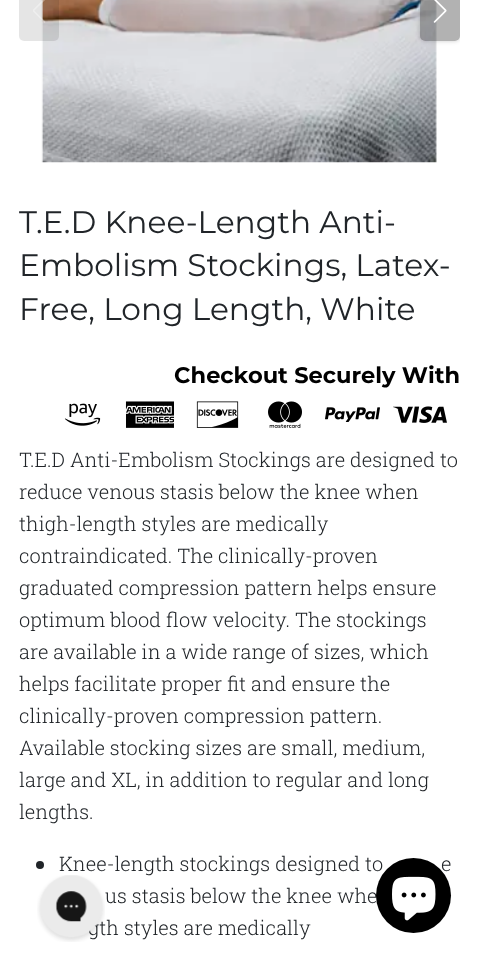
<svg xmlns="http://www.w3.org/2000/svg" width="478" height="958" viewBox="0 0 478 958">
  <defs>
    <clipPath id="clip1"><path d="M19 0h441v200H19z"/></clipPath>
    <clipPath id="clip2"><path d="M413 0H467V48H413ZM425-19H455C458-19 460-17 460-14V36C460 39 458 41 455 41H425C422 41 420 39 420 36V-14C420-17 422-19 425-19Z" clip-rule="evenodd"/></clipPath>
  </defs>
  <rect width="100%" height="100%" fill="#fff"/>
  <image x="41" y="0" width="396" height="163" href="img/2.png"/>
  <rect x="19" y="-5" width="40" height="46" rx="5" fill="#0000001a"/>
  <image x="33" y="0" width="13" height="23" href="img/1.png"/>
  <g clip-path="url(#clip1)">
    <g clip-path="url(#clip2)">
      <rect x="420" y="-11" width="40" height="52" rx="5" fill="#00000033" filter="blur(2px)"/>
    </g>
  </g>
  <rect x="420" y="-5" width="40" height="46" rx="5" fill="#0000004d"/>
  <image x="433" y="0" width="14" height="23" href="img/3.png"/>
  <image x="64" y="403" width="37" height="23" href="img/4.png"/>
  <image x="125" y="401" width="49" height="27" href="img/5.png"/>
  <image x="196" y="401" width="43" height="27" href="img/6.png"/>
  <image x="268" y="401" width="34" height="27" href="img/7.png"/>
  <image x="325" y="407" width="55" height="15" href="img/8.png"/>
  <image x="393" y="406" width="54" height="17" href="img/9.png"/>
  <circle cx="40" cy="865" r="4" fill="#212529"/>
  <g font-family="Montserrat" font-size="31.25" fill="#212529">
    <text x="19" y="233">T.E.D Knee-Length Anti-</text>
    <text x="19" y="276">Embolism Stockings, Latex-</text>
    <text x="19" y="320">Free, Long Length, White</text>
  </g>
  <text x="174" y="383" font-family="Montserrat" font-size="22.5" font-weight="bold" fill="#000">Checkout Securely With</text>
  <g font-family="Roboto Slab" font-size="20" font-weight="300" fill="#212529">
    <text x="19" y="467">T.E.D Anti-Embolism Stockings are designed to</text>
    <text x="19" y="499">reduce venous stasis below the knee when</text>
    <text x="19" y="531">thigh-length styles are medically</text>
    <text x="19" y="563">contraindicated. The clinically-proven</text>
    <text x="19" y="595">graduated compression pattern helps ensure</text>
    <text x="19" y="627">optimum blood flow velocity. The stockings</text>
    <text x="19" y="659">are available in a wide range of sizes, which</text>
    <text x="19" y="691">helps facilitate proper fit and ensure the</text>
    <text x="19" y="723">clinically-proven compression pattern.</text>
    <text x="19" y="755">Available stocking sizes are small, medium,</text>
    <text x="19" y="787">large and XL, in addition to regular and long</text>
    <text x="19" y="819">lengths.</text>
    <text x="59" y="871">Knee-length stockings designed to</text>
    <text x="441" y="871">e</text>
    <text x="105" y="903">us stasis below the knee whe</text>
    <text x="88" y="935">gth styles are medically</text>
  </g>
  <image x="37" y="875" width="68" height="67" href="img/10.png"/>
  <circle cx="413.5" cy="895.5" r="37.5" fill="#000"/>
  <image x="392" y="876" width="44" height="45" href="img/11.png"/>
</svg>
